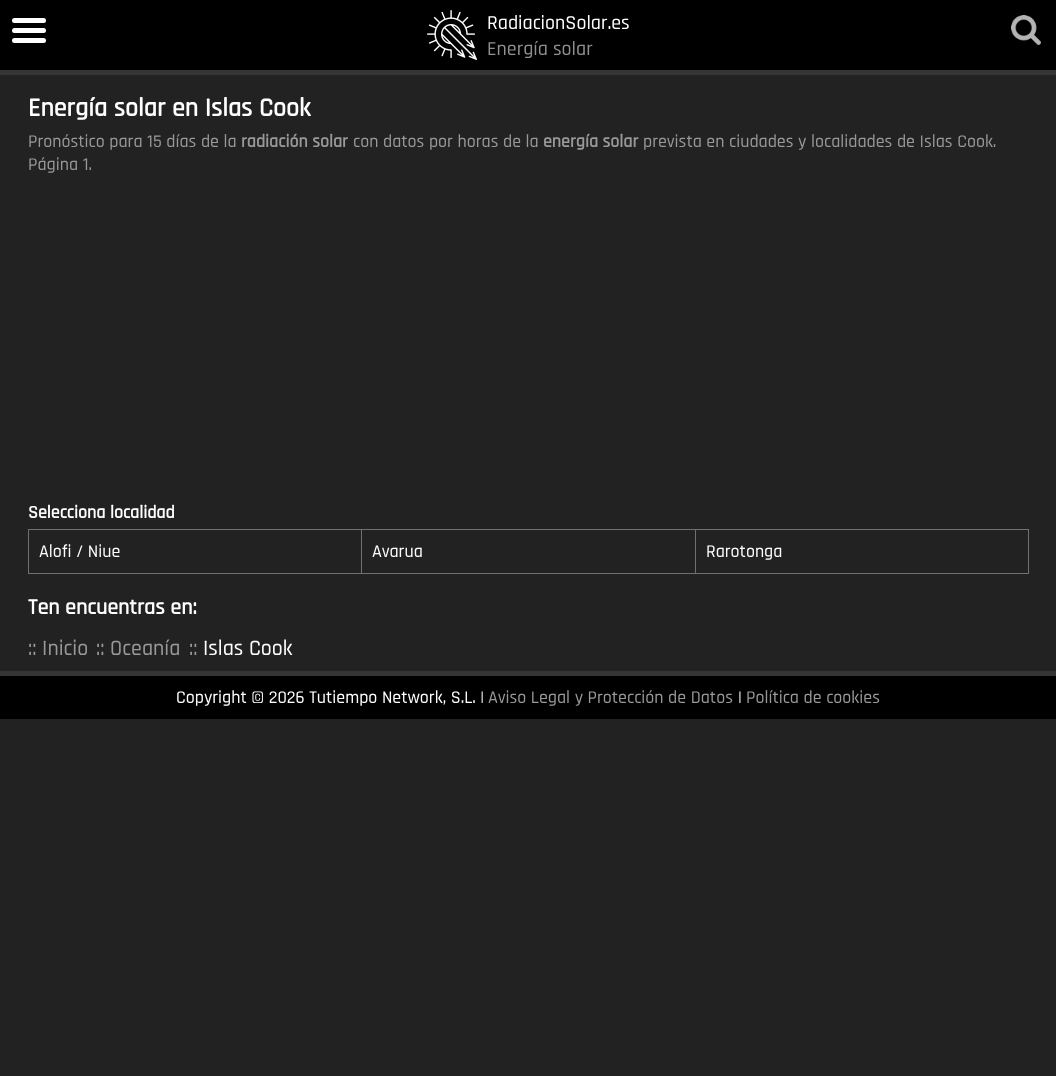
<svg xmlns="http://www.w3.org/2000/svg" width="1056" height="1076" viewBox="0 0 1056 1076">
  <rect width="100%" height="100%" fill="#222"/>
  <path d="M0 0h1056v70H0z" fill="#000"/>
  <path d="M0 70h1056v5H0z" fill="#353535"/>
  <rect x="12" y="18" width="34" height="5" rx="2.5" fill="#fff"/>
  <rect x="12" y="28" width="34" height="5" rx="2.5" fill="#fff"/>
  <rect x="12" y="38" width="34" height="5" rx="2.5" fill="#fff"/>
  <image x="427" y="10" width="50" height="50" href="img/1.png"/>
  <image x="1011" y="15" width="30" height="30" href="img/2.png"/>
  <path d="M28 529h1v45H28z" fill="#717171"/>
  <path d="M29 529h1000v1H29z" fill="#717171"/>
  <path d="M361 529h1v45H361z" fill="#717171"/>
  <path d="M29 573h333v1H29z" fill="#717171"/>
  <path d="M695 529h1v45H695z" fill="#717171"/>
  <path d="M362 573h334v1H362z" fill="#717171"/>
  <path d="M1028 529h1v45H1028z" fill="#717171"/>
  <path d="M696 573h333v1H696z" fill="#717171"/>
  <path d="M0 676h1056v43H0z" fill="#000"/>
  <path d="M0 671h1056v5H0z" fill="#353535"/>
  <text x="487" y="29" font-family="Rajdhani" font-size="20" font-weight="500" fill="#fff">RadiacionSolar.es</text>
  <text x="487" y="55" font-family="Rajdhani" font-size="20" font-weight="500" fill="#909090">Energía solar</text>
  <text x="28" y="116" font-family="Rajdhani" font-size="26" font-weight="bold" fill="#fff">Energía solar en Islas Cook</text>
  <text x="28" y="147" font-family="Rajdhani" font-size="18" font-weight="500" fill="#999">Pronóstico para 15 días de la</text>
  <text x="241" y="147" font-family="Rajdhani" font-size="18" font-weight="bold" fill="#999">radiación solar</text>
  <text x="353" y="147" font-family="Rajdhani" font-size="18" font-weight="500" fill="#999">con datos por horas de la</text>
  <text x="543" y="147" font-family="Rajdhani" font-size="18" font-weight="bold" fill="#999">energía solar</text>
  <g font-family="Rajdhani" font-size="18" font-weight="500" fill="#999">
    <text x="643" y="147">prevista en ciudades y localidades de Islas Cook.</text>
    <text x="28" y="170">Página 1.</text>
  </g>
  <text x="28" y="518" font-family="Rajdhani" font-size="18" font-weight="bold" fill="#fff">Selecciona localidad</text>
  <g font-family="Rajdhani" font-size="18" font-weight="500" fill="#fff">
    <text x="39" y="557">Alofi / Niue</text>
    <text x="372" y="557">Avarua</text>
    <text x="706" y="557">Rarotonga</text>
  </g>
  <text x="28" y="614" font-family="Rajdhani" font-size="22" font-weight="bold" fill="#fff">Ten encuentras en:</text>
  <g font-family="Rajdhani" font-size="22" font-weight="500" fill="#999">
    <text x="28" y="655">:: Inicio</text>
    <text x="96" y="655">:: Oceanía</text>
    <text x="189" y="655">::</text>
  </g>
  <text x="203" y="655" font-family="Rajdhani" font-size="22" font-weight="500" fill="#fff">Islas Cook</text>
  <text x="176" y="703" font-family="Rajdhani" font-size="18" font-weight="500" fill="#fff">Copyright © 2026 Tutiempo Network, S.L. |</text>
  <text x="488" y="703" font-family="Rajdhani" font-size="18" font-weight="500" fill="#999">Aviso Legal y Protección de Datos</text>
  <text x="738" y="703" font-family="Rajdhani" font-size="18" font-weight="500" fill="#fff">|</text>
  <text x="746" y="703" font-family="Rajdhani" font-size="18" font-weight="500" fill="#999">Política de cookies</text>
</svg>
